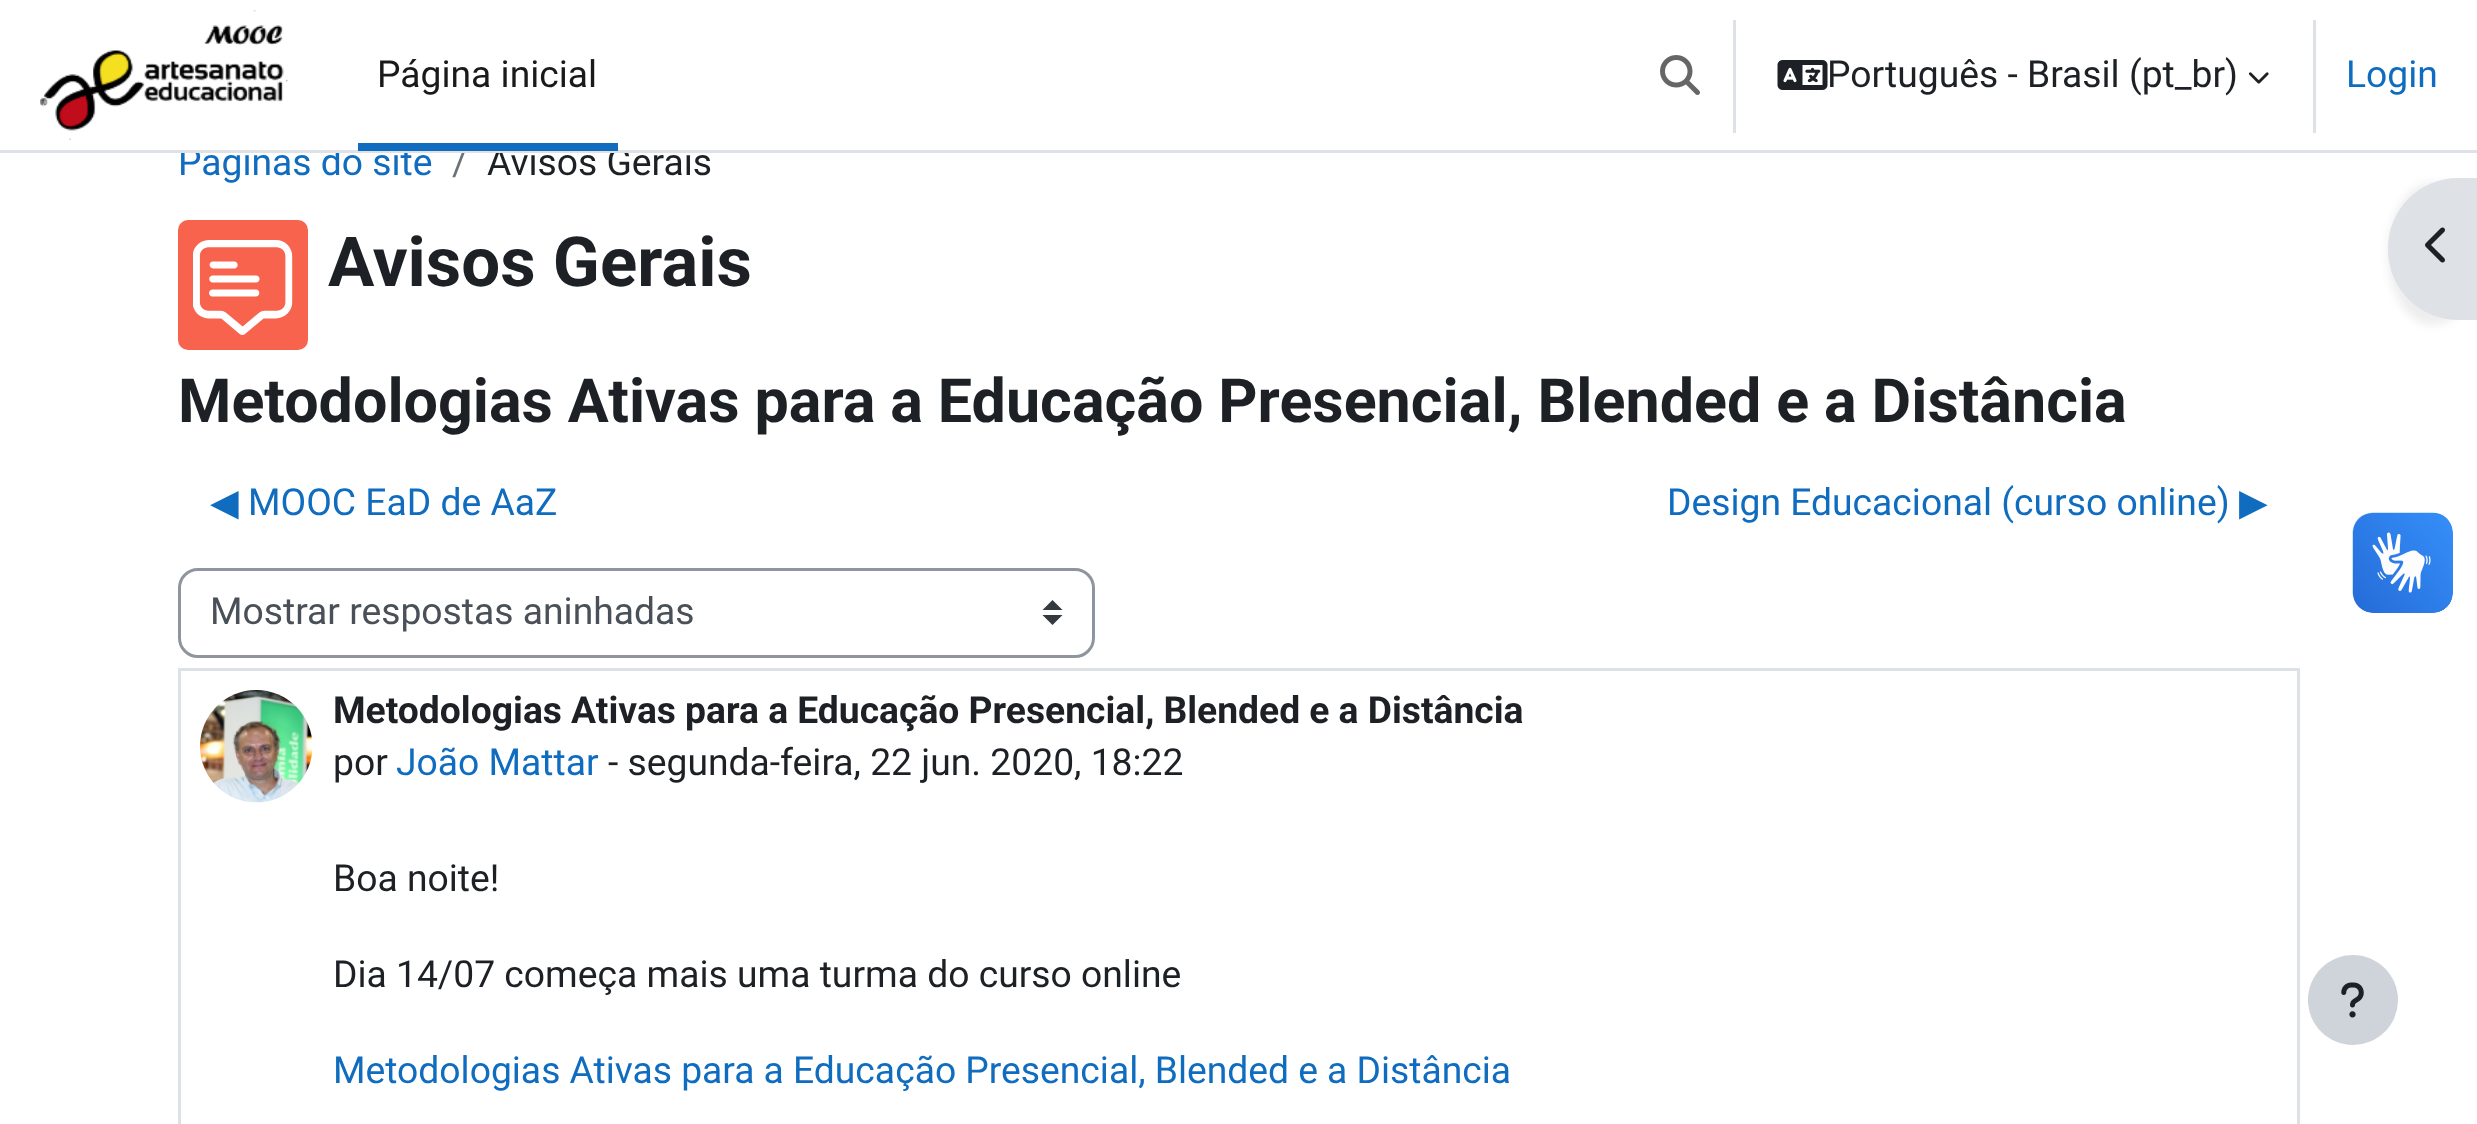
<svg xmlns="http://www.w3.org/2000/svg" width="2477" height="1124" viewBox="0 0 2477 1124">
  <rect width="100%" height="100%" fill="#fff"/>
  <image x="40" y="10" width="248" height="130" href="img/1.png"/>
  <image x="1660" y="55" width="40" height="40" href="img/2.png"/>
  <path d="M1733 20h3v113H1733z" fill="#dee2e6"/>
  <image x="1777" y="60" width="51" height="30" href="img/3.png"/>
  <image x="2248" y="72" width="21" height="12" href="img/4.png"/>
  <path d="M2313 20h3v113H2313z" fill="#dee2e6"/>
  <rect x="178" y="220" width="130" height="130" rx="10" fill="#f7634d"/>
  <image x="193" y="240" width="100" height="95" href="img/5.png"/>
  <rect x="2388" y="183" width="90" height="142" rx="70" fill="#00000012" filter="blur(5px)"/>
  <path d="M2458 178H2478V320H2458C2419.5 320 2388 288.5 2388 250V248C2388 209.5 2419.5 178 2458 178Z" fill="#dee2e6"/>
  <image x="2425" y="227" width="20" height="36" href="img/6.png"/>
  <path d="M1052.5 600L1042.5 610H1062.5ZM1052.5 625L1042.5 615H1062.5Z" fill="#343a40"/>
  <rect x="179.5" y="569.5" width="914" height="87" rx="18.5" fill="none" stroke="#8f959e" stroke-width="3"/>
  <path d="M179.5 669.5h2119v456H179.5z" fill="none" stroke="#dee2e6" stroke-width="3"/>
  <image x="200" y="690" width="113" height="113" href="img/7.png"/>
  <circle cx="2353" cy="1000" r="45" fill="#ced4da"/>
  <image x="2341" y="982" width="23" height="36" href="img/8.png"/>
  <image x="2352" y="512" width="101" height="101" href="img/9.png"/>
  <image x="2353" y="513" width="100" height="100" href="img/10.png"/>
  <text x="377" y="87" font-family="Roboto" font-size="37.25" fill="#1a1a1a">Página inicial</text>
  <text x="1827" y="87" font-family="Roboto" font-size="37.25" fill="#1d2125">Português - Brasil (pt_br)</text>
  <g font-family="Roboto" font-size="37.25" fill="#0f6cbf">
    <text x="2346" y="87">Login</text>
    <text x="178" y="175">Páginas do site</text>
  </g>
  <text x="452" y="175" font-family="Roboto" font-size="37.25" fill="#6a737b">/</text>
  <text x="487" y="175" font-family="Roboto" font-size="37.25" fill="#1d2125">Avisos Gerais</text>
  <path d="M0 150h2477v3H0z" fill="#dee2e6"/>
  <path d="M180 147h511v3H180z" fill="#fff"/>
  <path d="M358 143h260v8H358z" fill="#0f6cbf"/>
  <text x="328" y="286" font-family="Roboto" font-size="69" font-weight="bold" fill="#1d2125">Avisos Gerais</text>
  <text x="178" y="422" word-spacing="-0.25" font-family="Roboto" font-size="61" font-weight="bold" fill="#1d2125">Metodologias Ativas para a Educação Presencial, Blended e a Distância</text>
  <text x="210" y="515" font-family="DejaVu Sans" font-size="37.25" fill="#0f6cbf">◀︎</text>
  <g font-family="Roboto" font-size="37.25" fill="#0f6cbf">
    <text x="248" y="515">MOOC EaD de AaZ</text>
    <text x="1667" y="515">Design Educacional (curso online)</text>
  </g>
  <text x="2239" y="515" font-family="DejaVu Sans" font-size="37.25" fill="#0f6cbf">▶︎</text>
  <text x="210" y="624" font-family="Roboto" font-size="37.25" fill="#495057">Mostrar respostas aninhadas</text>
  <text x="333" y="723" word-spacing="-0.1" font-family="Roboto" font-size="37.25" font-weight="bold" fill="#1d2125">Metodologias Ativas para a Educação Presencial, Blended e a Distância</text>
  <text x="333" y="775" font-family="Roboto" font-size="37.25" fill="#1d2125">por</text>
  <text x="396" y="775" font-family="Roboto" font-size="37.25" fill="#0f6cbf">João Mattar</text>
  <g font-family="Roboto" font-size="37.25" fill="#1d2125">
    <text x="608" y="775">- segunda-feira, 22 jun. 2020, 18:22</text>
    <text x="333" y="891">Boa noite!</text>
    <text x="333" y="987">Dia 14/07 começa mais uma turma do curso online</text>
  </g>
  <text x="333" y="1083" word-spacing="-0.1" font-family="Roboto" font-size="37.25" fill="#0f6cbf">Metodologias Ativas para a Educação Presencial, Blended e a Distância</text>
</svg>
